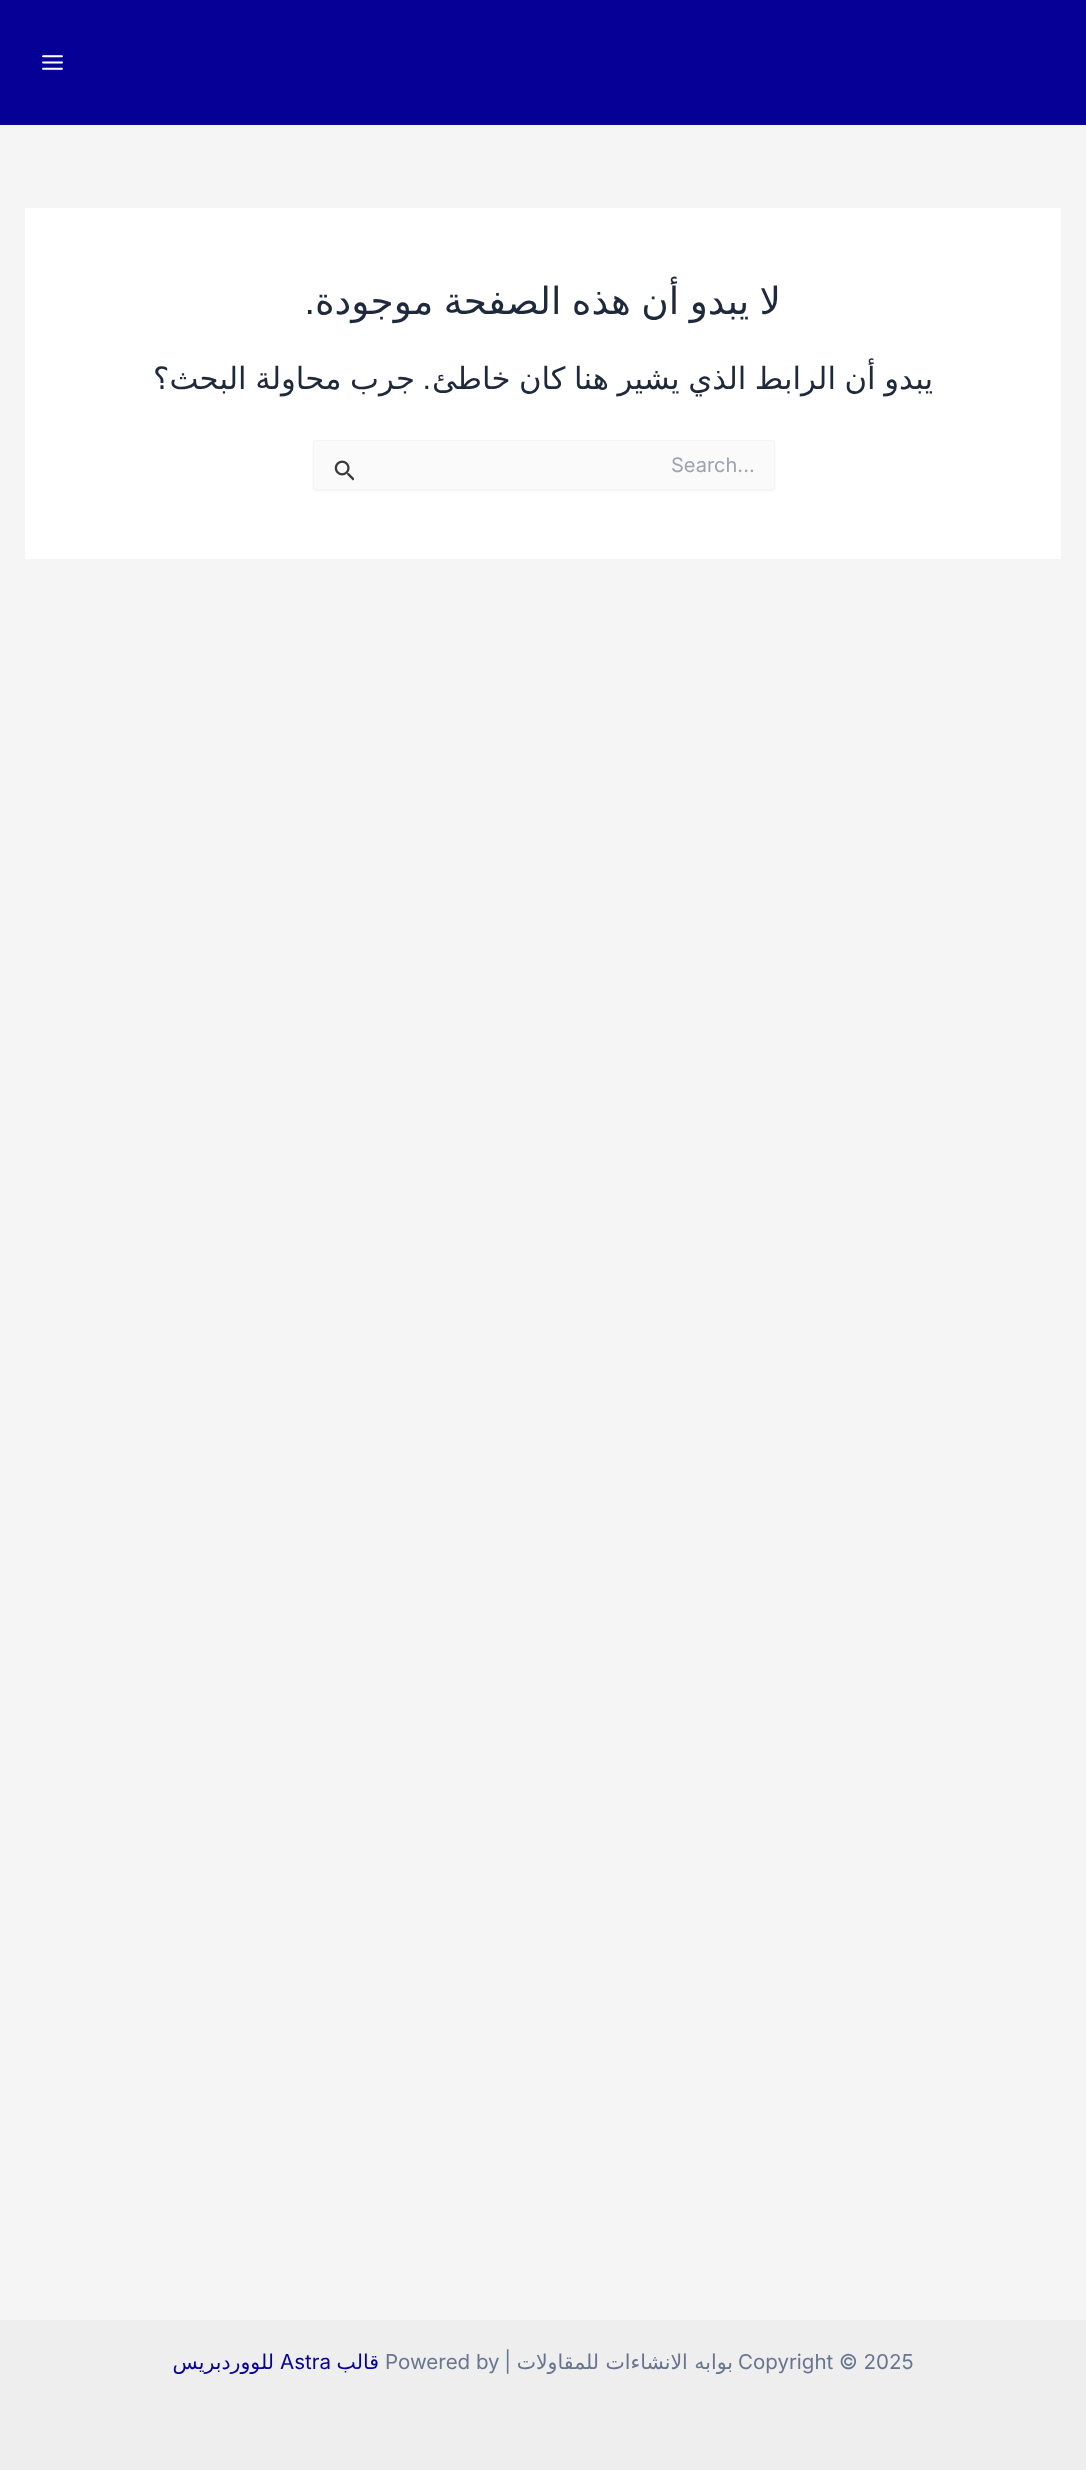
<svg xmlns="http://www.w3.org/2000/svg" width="1086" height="2470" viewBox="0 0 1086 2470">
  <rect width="100%" height="100%" fill="#f5f5f5"/>
  <path d="M0 0h1086v125H0z" fill="#060097"/>
  <image x="42" y="55" width="21" height="15" href="img/1.png"/>
  <path d="M25 208h1036v351H25z" fill="#fff"/>
  <rect x="313" y="441" width="462" height="50" rx="2.5" fill="#0000000d" filter="blur(1px)"/>
  <rect x="313.5" y="440.5" width="461" height="49" rx="2" fill="#fafafa" stroke="#f2f5f7"/>
  <image x="334" y="460" width="20" height="21" href="img/2.png"/>
  <path d="M0 2320h1086v150H0z" fill="#eee"/>
  <path d="M0 2319h1086v1H0z" fill="#f2f5f7"/>
  <text x="781" y="314" word-spacing="-1.5" font-family="DejaVu Sans" font-size="37.5" direction="rtl" fill="#1e293b">لا يبدو أن هذه الصفحة موجودة</text>
  <text x="315" y="314" font-family="Liberation Sans" font-size="37.5" direction="rtl" fill="#1e293b">.</text>
  <text x="933" y="389" word-spacing="-1.25" font-family="DejaVu Sans" font-size="30.75" direction="rtl" fill="#1e293b">يبدو أن الرابط الذي يشير هنا كان خاطئ</text>
  <text x="431" y="389" font-family="Liberation Sans" font-size="30.75" direction="rtl" fill="#1e293b">.</text>
  <text x="415" y="389" word-spacing="-1.25" font-family="DejaVu Sans" font-size="30.75" direction="rtl" fill="#1e293b">جرب محاولة البحث؟</text>
  <text x="671" y="472" font-family="Inter" font-size="20" fill="#9ca3af">Search...</text>
  <text x="738" y="2369" font-family="Inter" font-size="20.5" fill="#67768e">Copyright © 2025</text>
  <text x="733" y="2369" font-family="DejaVu Sans" font-size="20.5" direction="rtl" fill="#67768e">بوابه الانشاءات للمقاولات</text>
  <text x="511" y="2369" font-family="Inter" font-size="20.5" direction="rtl" fill="#67768e">|</text>
  <text x="385" y="2369" font-family="Inter" font-size="20.5" fill="#67768e">Powered by</text>
  <text x="379" y="2369" font-family="DejaVu Sans" font-size="20.5" direction="rtl" fill="#060097">قالب</text>
  <text x="280" y="2369" font-family="Inter" font-size="20.5" fill="#060097">Astra</text>
  <text x="274" y="2369" font-family="DejaVu Sans" font-size="20.5" direction="rtl" fill="#060097">للووردبريس</text>
</svg>
